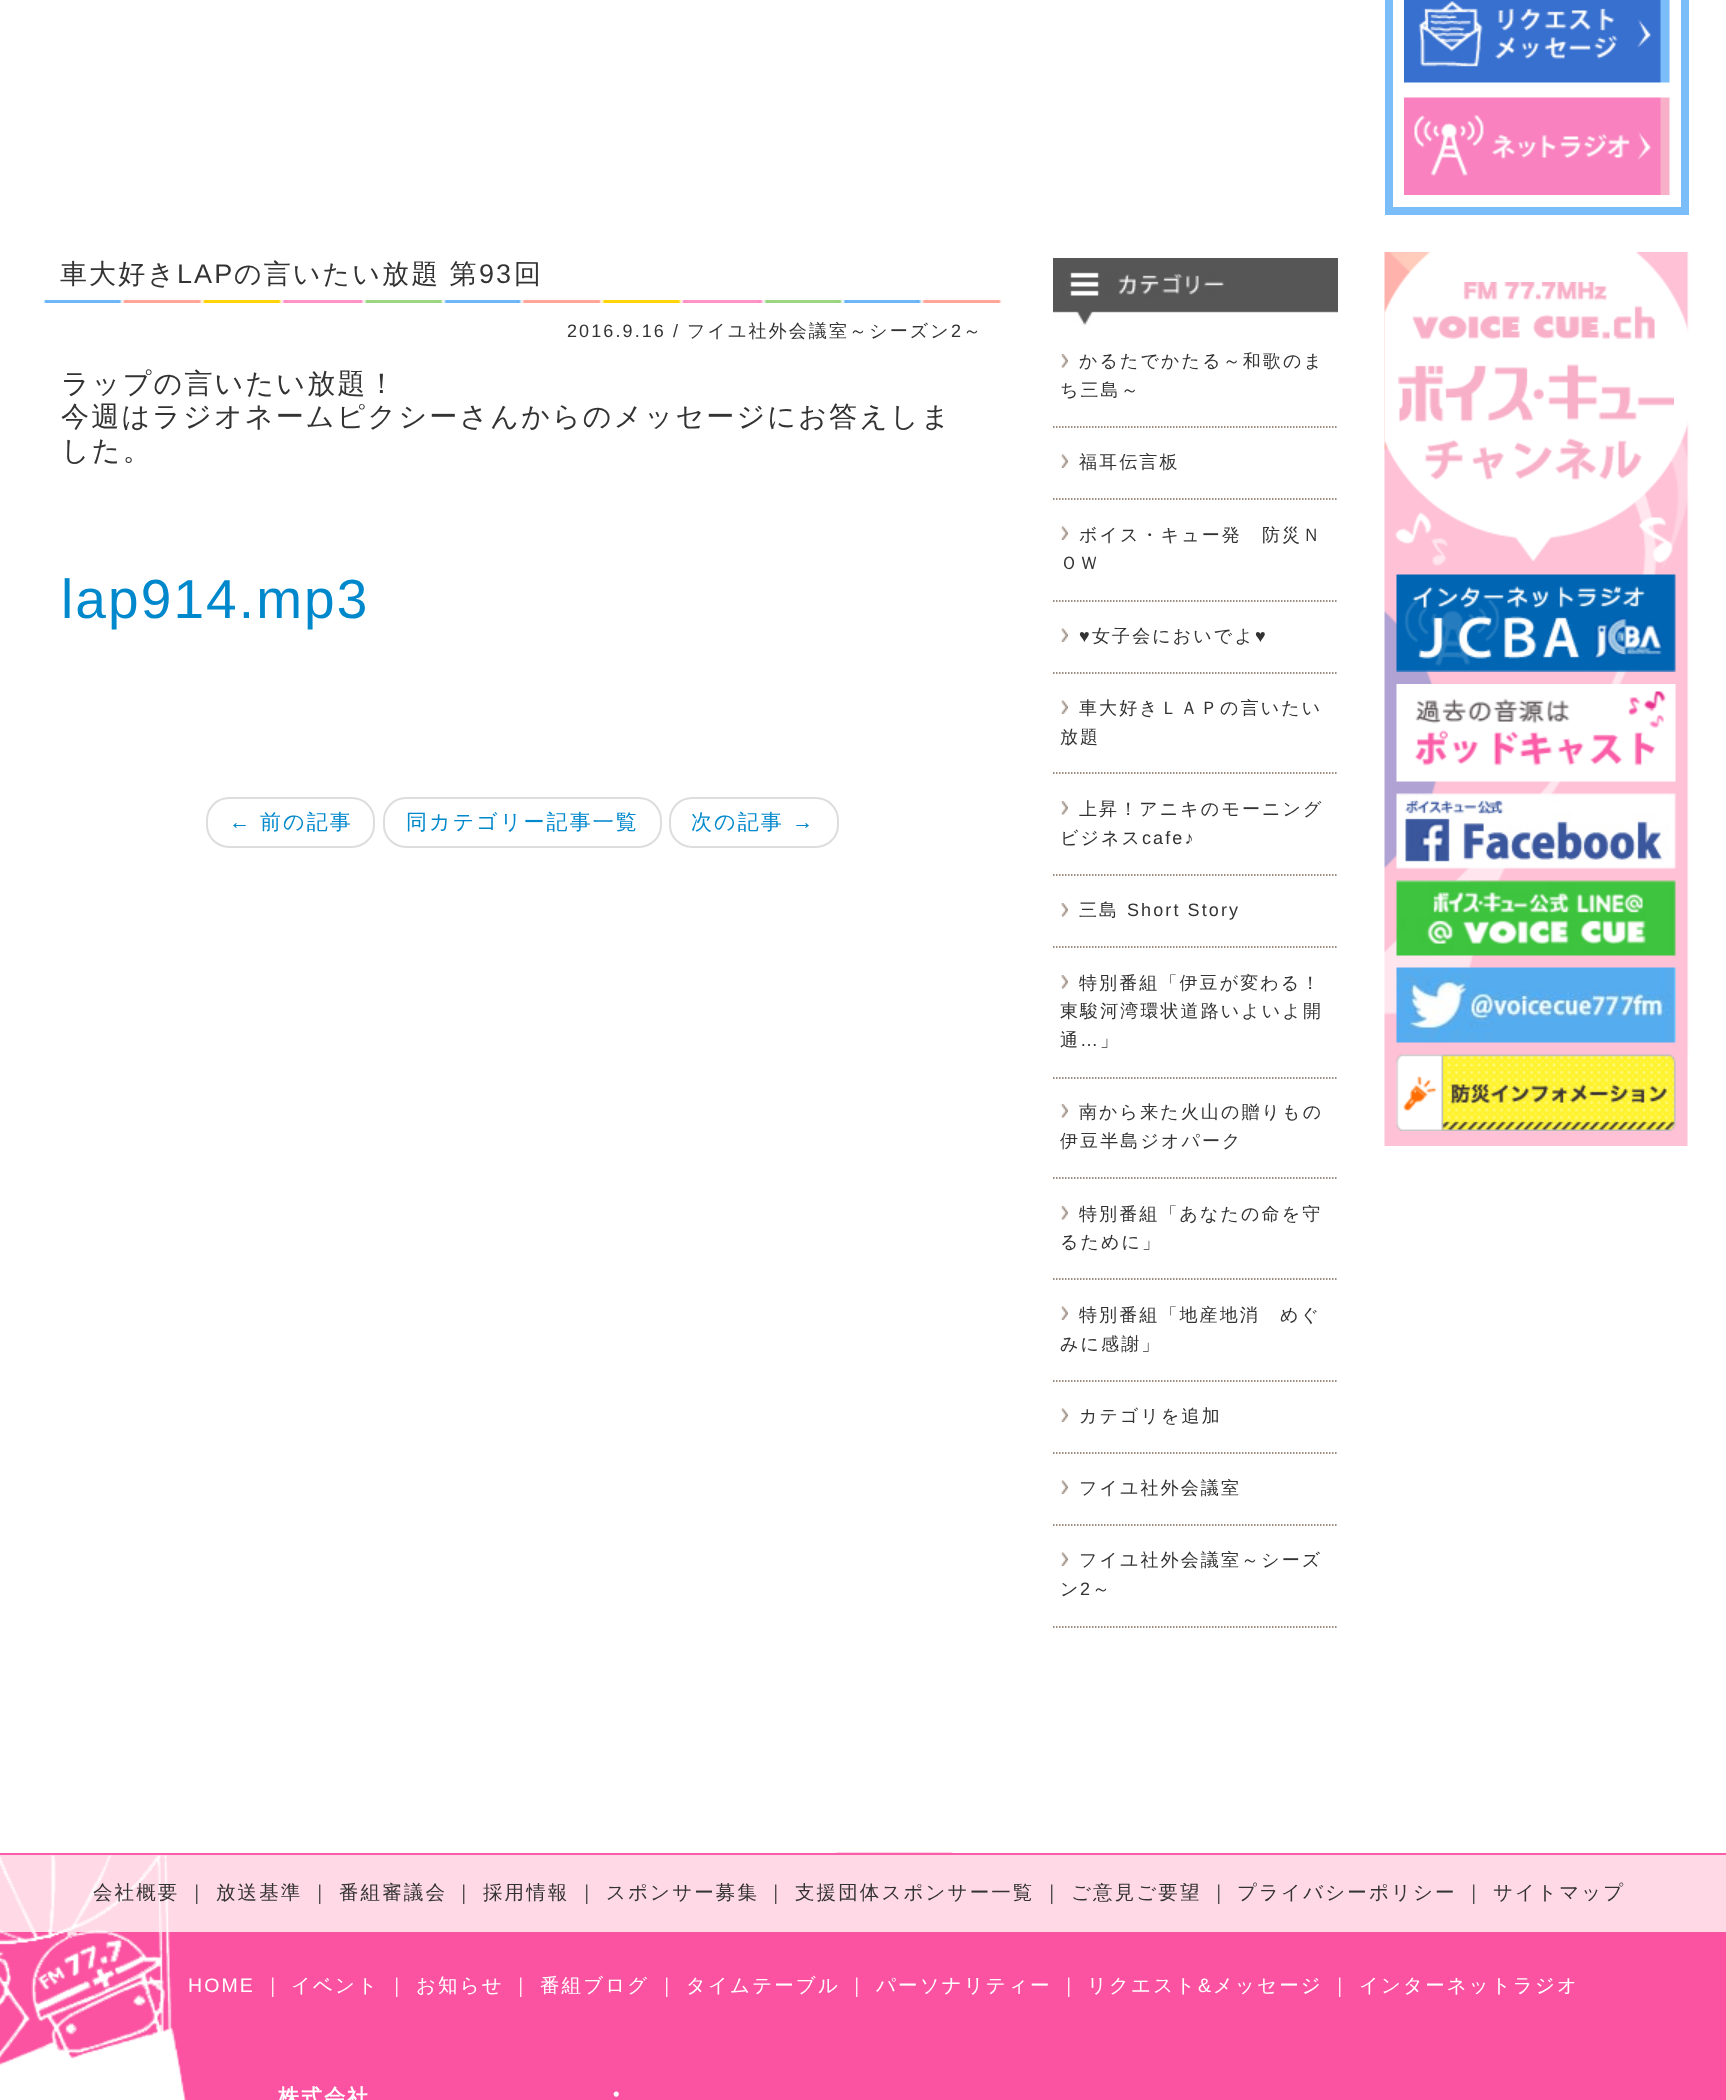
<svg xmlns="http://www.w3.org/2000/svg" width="1726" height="2100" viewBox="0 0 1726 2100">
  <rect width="100%" height="100%" fill="#fff"/>
  <image x="43" y="300" width="959" height="3" href="img/1.png"/>
  <rect x="207" y="798" width="167" height="49" rx="22" fill="none" stroke="#ddd" stroke-width="2"/>
  <rect x="384" y="798" width="277" height="49" rx="22" fill="none" stroke="#ddd" stroke-width="2"/>
  <rect x="670" y="798" width="168" height="49" rx="22" fill="none" stroke="#ddd" stroke-width="2"/>
  <image x="1053" y="258" width="285" height="68" href="img/2.png"/>
  <path d="M1053 427H1338" fill="none" stroke="#7b6557" stroke-width="1.5" stroke-dasharray="1.5 1.5"/>
  <image x="1060" y="354" width="8" height="14" href="img/3.png"/>
  <path d="M1053 499H1338" fill="none" stroke="#7b6557" stroke-width="1.5" stroke-dasharray="1.5 1.5"/>
  <image x="1060" y="454" width="8" height="14" href="img/4.png"/>
  <path d="M1053 601H1338" fill="none" stroke="#7b6557" stroke-width="1.5" stroke-dasharray="1.5 1.5"/>
  <image x="1060" y="526" width="8" height="14" href="img/4.png"/>
  <path d="M1053 673H1338" fill="none" stroke="#7b6557" stroke-width="1.5" stroke-dasharray="1.5 1.5"/>
  <image x="1060" y="628" width="8" height="14" href="img/4.png"/>
  <path d="M1053 773H1338" fill="none" stroke="#7b6557" stroke-width="1.5" stroke-dasharray="1.5 1.5"/>
  <image x="1060" y="700" width="8" height="14" href="img/4.png"/>
  <path d="M1053 875H1338" fill="none" stroke="#7b6557" stroke-width="1.5" stroke-dasharray="1.5 1.5"/>
  <image x="1060" y="801" width="8" height="14" href="img/3.png"/>
  <path d="M1053 947H1338" fill="none" stroke="#7b6557" stroke-width="1.5" stroke-dasharray="1.5 1.5"/>
  <image x="1060" y="903" width="8" height="14" href="img/3.png"/>
  <path d="M1053 1078H1338" fill="none" stroke="#7b6557" stroke-width="1.5" stroke-dasharray="1.5 1.5"/>
  <image x="1060" y="975" width="8" height="14" href="img/3.png"/>
  <path d="M1053 1178H1338" fill="none" stroke="#7b6557" stroke-width="1.5" stroke-dasharray="1.5 1.5"/>
  <image x="1060" y="1104" width="8" height="14" href="img/3.png"/>
  <path d="M1053 1279H1338" fill="none" stroke="#7b6557" stroke-width="1.5" stroke-dasharray="1.5 1.5"/>
  <image x="1060" y="1206" width="8" height="14" href="img/3.png"/>
  <path d="M1053 1381H1338" fill="none" stroke="#7b6557" stroke-width="1.5" stroke-dasharray="1.5 1.5"/>
  <image x="1060" y="1306" width="8" height="14" href="img/4.png"/>
  <path d="M1053 1453H1338" fill="none" stroke="#7b6557" stroke-width="1.5" stroke-dasharray="1.5 1.5"/>
  <image x="1060" y="1408" width="8" height="14" href="img/4.png"/>
  <path d="M1053 1525H1338" fill="none" stroke="#7b6557" stroke-width="1.5" stroke-dasharray="1.5 1.5"/>
  <image x="1060" y="1480" width="8" height="14" href="img/4.png"/>
  <path d="M1053 1627H1338" fill="none" stroke="#7b6557" stroke-width="1.5" stroke-dasharray="1.5 1.5"/>
  <image x="1060" y="1552" width="8" height="14" href="img/4.png"/>
  <path d="M1389 -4h296v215H1389z" fill="none" stroke="#7bbdf9" stroke-width="8"/>
  <image x="1404" y="0" width="266" height="83" href="img/5.png"/>
  <image x="1404" y="97" width="266" height="98" href="img/6.png"/>
  <image x="1384" y="252" width="305" height="894" href="img/7.png"/>
  <image x="1384" y="252" width="305" height="310" href="img/8.png"/>
  <image x="1411" y="282" width="244" height="57" href="img/9.png"/>
  <image x="1398" y="364" width="276" height="116" href="img/10.png"/>
  <image x="1396" y="574" width="280" height="98" href="img/11.png"/>
  <image x="1396" y="684" width="280" height="98" href="img/12.png"/>
  <image x="1396" y="793" width="280" height="76" href="img/13.png"/>
  <image x="1396" y="880" width="280" height="76" href="img/14.png"/>
  <image x="1396" y="967" width="280" height="76" href="img/15.png"/>
  <image x="1396" y="1054" width="280" height="77" href="img/16.png"/>
  <path d="M0 1855h1726v77H0z" fill="#ffd9e6"/>
  <path d="M0 1853h1726v2H0z" fill="#fa5ea8"/>
  <image x="835" y="1852" width="118" height="1" href="img/17.png"/>
  <path d="M0 1932h1726v168H0z" fill="#fb53a1"/>
  <image x="0" y="1855" width="187" height="245" href="img/18.png"/>
  <text x="60" y="283" font-family="WenQuanYi Zen Hei" font-size="27" font-weight="500" letter-spacing="2.1" fill="#333">車大好き</text>
  <text x="177" y="283" font-family="Liberation Sans" font-size="27" letter-spacing="2.1" fill="#333">LAP</text>
  <text x="234" y="283" word-spacing="-1" font-family="WenQuanYi Zen Hei" font-size="27" font-weight="500" letter-spacing="2.1" fill="#333">の言いたい放題 第</text>
  <text x="479" y="283" font-family="Liberation Sans" font-size="27" letter-spacing="2.1" fill="#333">93</text>
  <text x="514" y="283" font-family="WenQuanYi Zen Hei" font-size="27" font-weight="500" letter-spacing="2.1" fill="#333">回</text>
  <text x="567" y="337" font-family="Liberation Sans" font-size="18" letter-spacing="2.1" fill="#333">2016.9.16 /</text>
  <text x="687" y="337" font-family="WenQuanYi Zen Hei" font-size="18" font-weight="500" letter-spacing="2.1" fill="#333">フイユ社外会議室～シーズン</text>
  <text x="951" y="337" font-family="Liberation Sans" font-size="18" letter-spacing="2.1" fill="#333">2</text>
  <text x="963" y="337" font-family="WenQuanYi Zen Hei" font-size="18" font-weight="500" letter-spacing="2.1" fill="#333">～</text>
  <g font-family="WenQuanYi Zen Hei" font-size="28.1" font-weight="500" letter-spacing="2.1" fill="#333">
    <text x="61" y="393">ラップの言いたい放題！</text>
    <text x="61" y="426">今週はラジオネームピクシーさんからのメッセージにお答えしま</text>
    <text x="61" y="460">した。</text>
  </g>
  <text x="61" y="618" font-family="Liberation Sans" font-size="55" letter-spacing="2.1" fill="#08c">lap914.mp3</text>
  <text x="229" y="829" font-family="Liberation Sans" font-size="21" letter-spacing="2.1" fill="#08c">←</text>
  <g font-family="WenQuanYi Zen Hei" font-size="21" font-weight="500" letter-spacing="2.1" fill="#08c">
    <text x="260" y="829">前の記事</text>
    <text x="406" y="829">同カテゴリー記事一覧</text>
    <text x="691" y="829">次の記事</text>
  </g>
  <text x="792" y="829" font-family="Liberation Sans" font-size="21" letter-spacing="2.1" fill="#08c">→</text>
  <g font-family="WenQuanYi Zen Hei" font-size="18" font-weight="500" letter-spacing="2.1" fill="#333">
    <text x="1079" y="367">かるたでかたる～和歌のま</text>
    <text x="1060" y="396">ち三島～</text>
    <text x="1079" y="468">福耳伝言板</text>
    <text x="1079" y="541">ボイス・キュー発　防災Ｎ</text>
    <text x="1060" y="569">ＯＷ</text>
  </g>
  <text x="1079" y="642" font-family="Liberation Sans" font-size="18" letter-spacing="2.1" fill="#333">♥</text>
  <text x="1092" y="642" font-family="WenQuanYi Zen Hei" font-size="18" font-weight="500" letter-spacing="2.1" fill="#333">女子会においでよ</text>
  <text x="1255" y="642" font-family="Liberation Sans" font-size="18" letter-spacing="2.1" fill="#333">♥</text>
  <g font-family="WenQuanYi Zen Hei" font-size="18" font-weight="500" letter-spacing="2.1" fill="#333">
    <text x="1079" y="714">車大好きＬＡＰの言いたい</text>
    <text x="1060" y="743">放題</text>
    <text x="1079" y="815">上昇！アニキのモーニング</text>
    <text x="1060" y="844">ビジネス</text>
  </g>
  <text x="1142" y="844" font-family="Liberation Sans" font-size="18" letter-spacing="2.1" fill="#333">cafe♪</text>
  <text x="1079" y="916" font-family="WenQuanYi Zen Hei" font-size="18" font-weight="500" letter-spacing="2.1" fill="#333">三島</text>
  <text x="1127" y="916" font-family="Liberation Sans" font-size="18" letter-spacing="2.1" fill="#333">Short Story</text>
  <g font-family="WenQuanYi Zen Hei" font-size="18" font-weight="500" letter-spacing="2.1" fill="#333">
    <text x="1079" y="989">特別番組「伊豆が変わる！</text>
    <text x="1060" y="1017">東駿河湾環状道路いよいよ開</text>
    <text x="1060" y="1046">通</text>
  </g>
  <text x="1080" y="1046" font-family="Liberation Sans" font-size="18" letter-spacing="2.1" fill="#333">…</text>
  <g font-family="WenQuanYi Zen Hei" font-size="18" font-weight="500" letter-spacing="2.1" fill="#333">
    <text x="1100" y="1046">」</text>
    <text x="1079" y="1118">南から来た火山の贈りもの</text>
    <text x="1060" y="1147">伊豆半島ジオパーク</text>
    <text x="1079" y="1220">特別番組「あなたの命を守</text>
    <text x="1060" y="1248">るために」</text>
    <text x="1079" y="1321">特別番組「地産地消　めぐ</text>
    <text x="1060" y="1350">みに感謝」</text>
    <text x="1079" y="1422">カテゴリを追加</text>
    <text x="1079" y="1494">フイユ社外会議室</text>
    <text x="1079" y="1566">フイユ社外会議室～シーズ</text>
    <text x="1060" y="1595">ン</text>
  </g>
  <text x="1080" y="1595" font-family="Liberation Sans" font-size="18" letter-spacing="2.1" fill="#333">2</text>
  <text x="1092" y="1595" font-family="WenQuanYi Zen Hei" font-size="18" font-weight="500" letter-spacing="2.1" fill="#333">～</text>
  <g font-family="WenQuanYi Zen Hei" font-size="19.5" font-weight="500" letter-spacing="2.1" fill="#333">
    <text x="93" y="1899">会社概要</text>
    <text x="187" y="1899">｜</text>
    <text x="216" y="1899">放送基準</text>
    <text x="310" y="1899">｜</text>
    <text x="339" y="1899">番組審議会</text>
    <text x="454" y="1899">｜</text>
    <text x="483" y="1899">採用情報</text>
    <text x="577" y="1899">｜</text>
    <text x="606" y="1899">スポンサー募集</text>
    <text x="766" y="1899">｜</text>
    <text x="795" y="1899">支援団体スポンサー一覧</text>
    <text x="1042" y="1899">｜</text>
    <text x="1071" y="1899">ご意見ご要望</text>
    <text x="1209" y="1899">｜</text>
    <text x="1237" y="1899">プライバシーポリシー</text>
    <text x="1464" y="1899">｜</text>
    <text x="1493" y="1899">サイトマップ</text>
  </g>
  <text x="188" y="1992" font-family="Liberation Sans" font-size="19.5" letter-spacing="2.1" fill="#fff">HOME</text>
  <g font-family="WenQuanYi Zen Hei" font-size="19.5" font-weight="500" letter-spacing="2.1" fill="#fff">
    <text x="263" y="1992">｜</text>
    <text x="291" y="1992">イベント</text>
    <text x="387" y="1992">｜</text>
    <text x="416" y="1992">お知らせ</text>
    <text x="511" y="1992">｜</text>
    <text x="540" y="1992">番組ブログ</text>
    <text x="657" y="1992">｜</text>
    <text x="686" y="1992">タイムテーブル</text>
    <text x="847" y="1992">｜</text>
    <text x="876" y="1992">パーソナリティー</text>
    <text x="1059" y="1992">｜</text>
    <text x="1087" y="1992">リクエスト</text>
  </g>
  <text x="1198" y="1992" font-family="Liberation Sans" font-size="19.5" letter-spacing="2.1" fill="#fff">&amp;</text>
  <g font-family="WenQuanYi Zen Hei" font-size="19.5" font-weight="500" letter-spacing="2.1" fill="#fff">
    <text x="1213" y="1992">メッセージ</text>
    <text x="1330" y="1992">｜</text>
    <text x="1359" y="1992">インターネットラジオ</text>
  </g>
  <text x="278" y="2104" font-family="WenQuanYi Zen Hei" font-size="21" font-weight="bold" letter-spacing="2.1" fill="#fff">株式会社</text>
  <text x="602" y="2104" font-family="WenQuanYi Zen Hei" font-size="27" font-weight="bold" letter-spacing="2.1" fill="#fff">・</text>
</svg>
